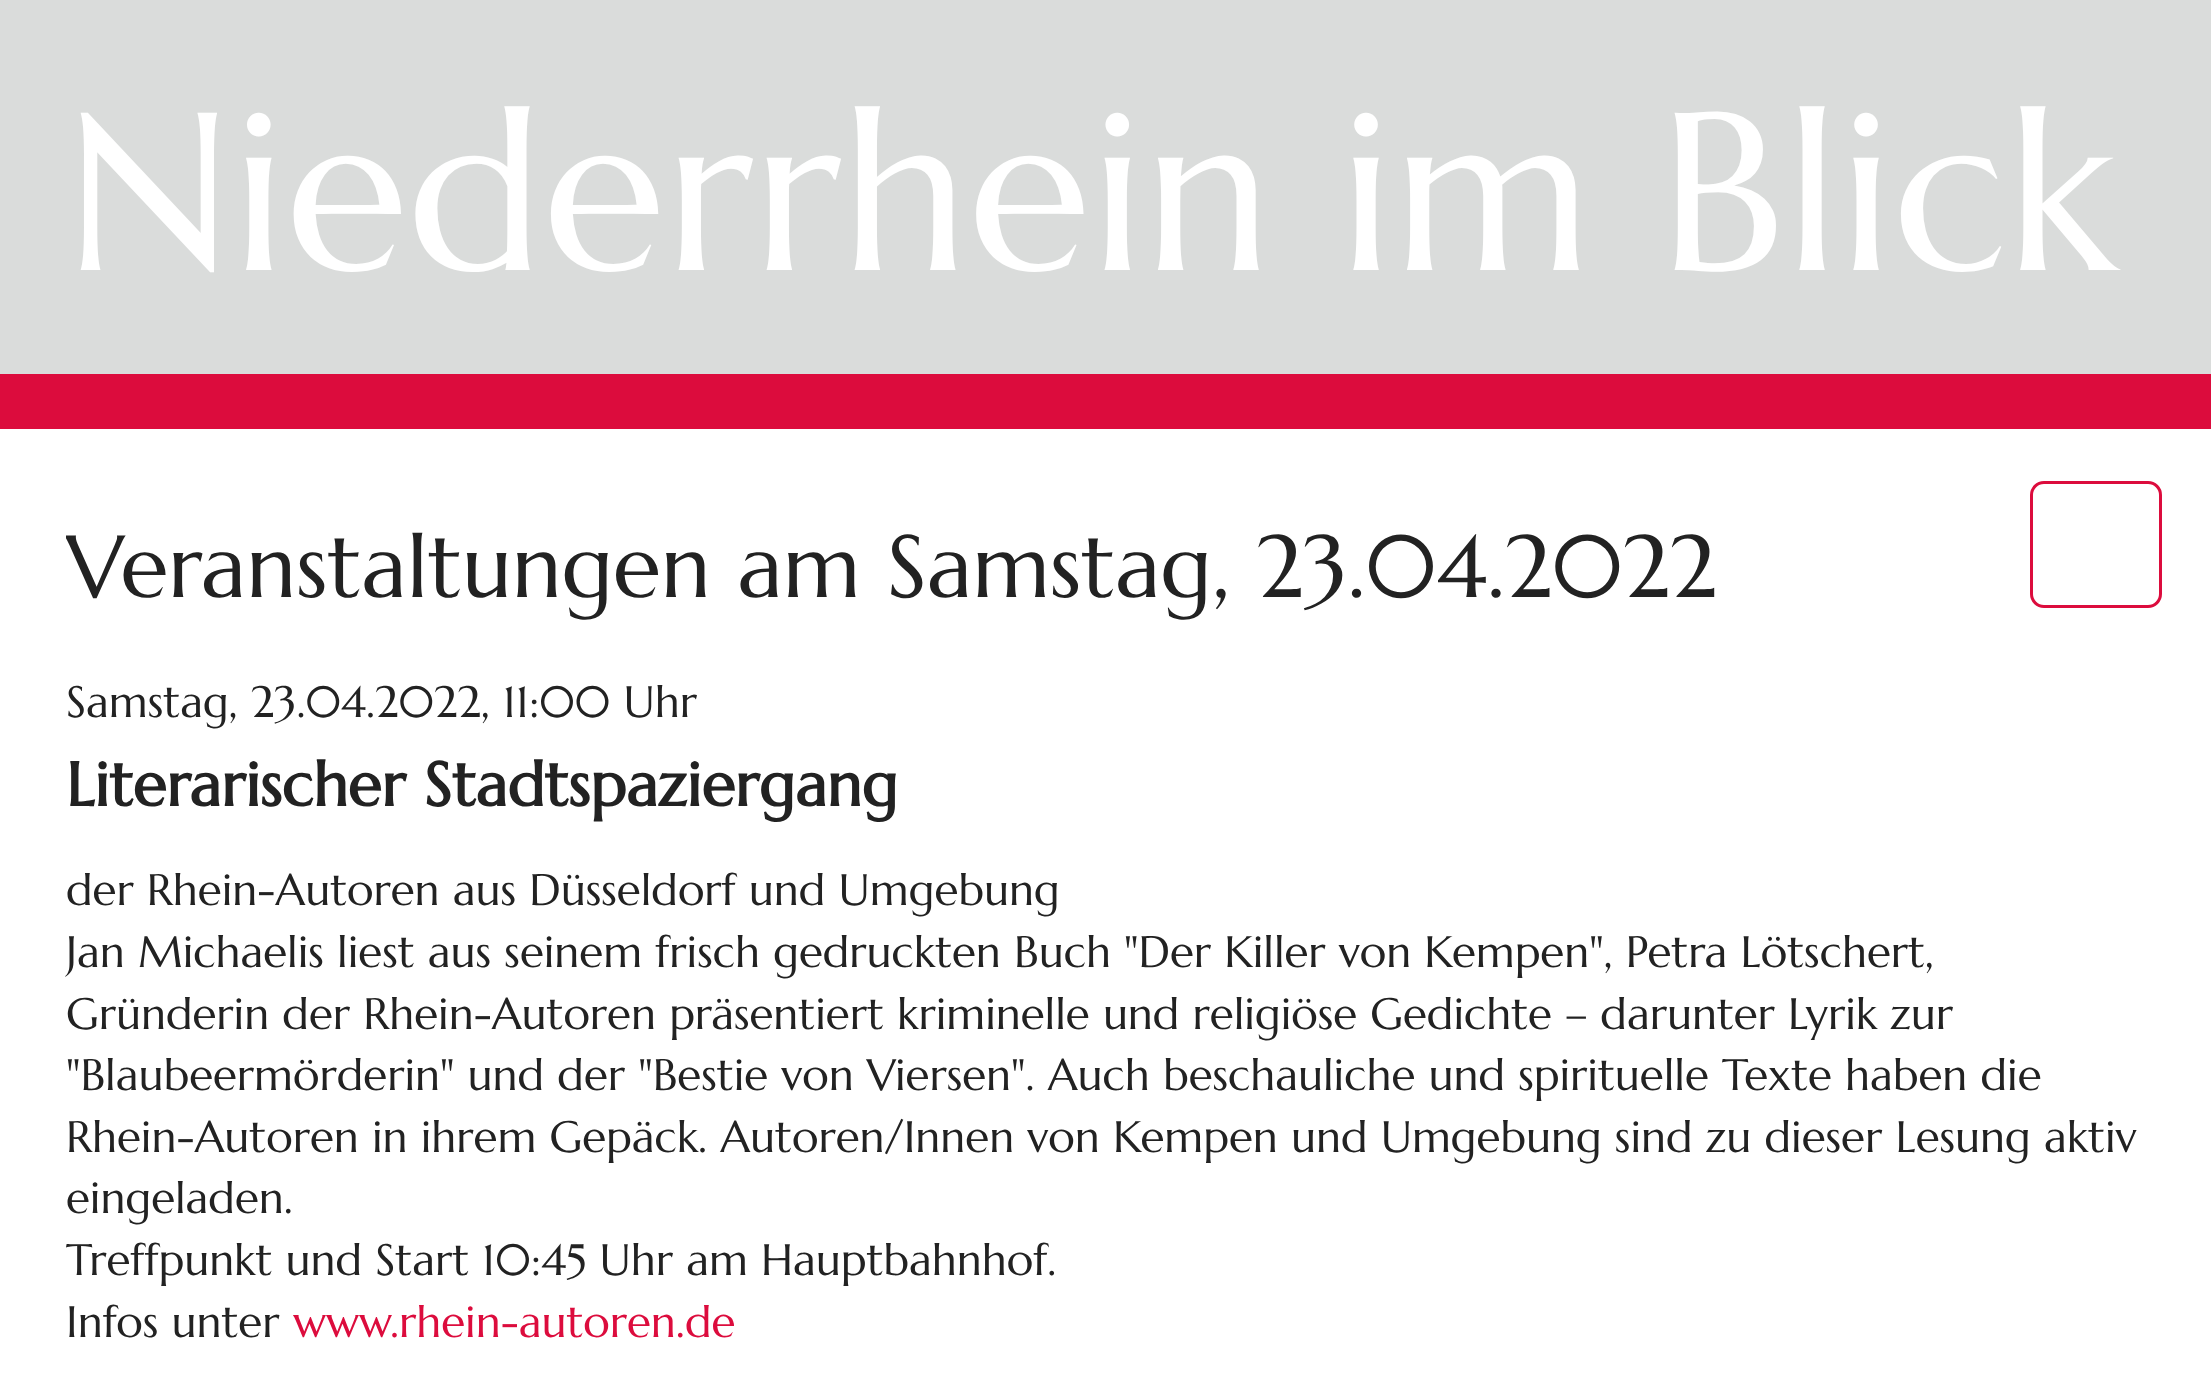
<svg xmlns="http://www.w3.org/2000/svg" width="2211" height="1377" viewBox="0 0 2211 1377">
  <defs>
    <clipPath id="clip1"><path d="M66 512h2079v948H66z"/></clipPath>
  </defs>
  <rect width="100%" height="100%" fill="#fff"/>
  <path d="M0 0h2211v374H0z" fill="#dadcdb"/>
  <path d="M0 374h2211v55H0z" fill="#dc0c3d"/>
  <rect x="2031.5" y="482.5" width="129" height="124" rx="12.5" fill="none" stroke="#dc0c3d" stroke-width="3"/>
  <text x="66" y="270" font-family="Marcellus" font-size="224.5" fill="#fff">Niederrhein im Blick</text>
  <g clip-path="url(#clip1)">
    <text x="66" y="597" font-family="Marcellus" font-size="88" fill="#222">Veranstaltungen am Samstag, 23.04.2022</text>
  </g>
  <text x="66" y="717" font-family="Marcellus" font-size="44" fill="#222">Samstag, 23.04.2022, 11:00 Uhr</text>
  <text x="66" y="806" font-family="Marcellus" font-size="61.6" font-weight="bold" fill="#222">Literarischer Stadtspaziergang</text>
  <g font-family="Marcellus" font-size="44" fill="#222">
    <text x="66" y="905">der Rhein-Autoren aus Düsseldorf und Umgebung</text>
    <text x="66" y="967">Jan Michaelis liest aus seinem frisch gedruckten Buch "Der Killer von Kempen", Petra Lötschert,</text>
    <text x="66" y="1029">Gründerin der Rhein-Autoren präsentiert kriminelle und religiöse Gedichte – darunter Lyrik zur</text>
    <text x="66" y="1090">"Blaubeermörderin" und der "Bestie von Viersen". Auch beschauliche und spirituelle Texte haben die</text>
    <text x="66" y="1152">Rhein-Autoren in ihrem Gepäck. Autoren/Innen von Kempen und Umgebung sind zu dieser Lesung aktiv</text>
    <text x="66" y="1213">eingeladen.</text>
    <text x="66" y="1275">Treffpunkt und Start 10:45 Uhr am Hauptbahnhof.</text>
    <text x="66" y="1337">Infos unter</text>
  </g>
  <text x="293" y="1337" font-family="Marcellus" font-size="44" fill="#dc0c3d">www.rhein-autoren.de</text>
</svg>
